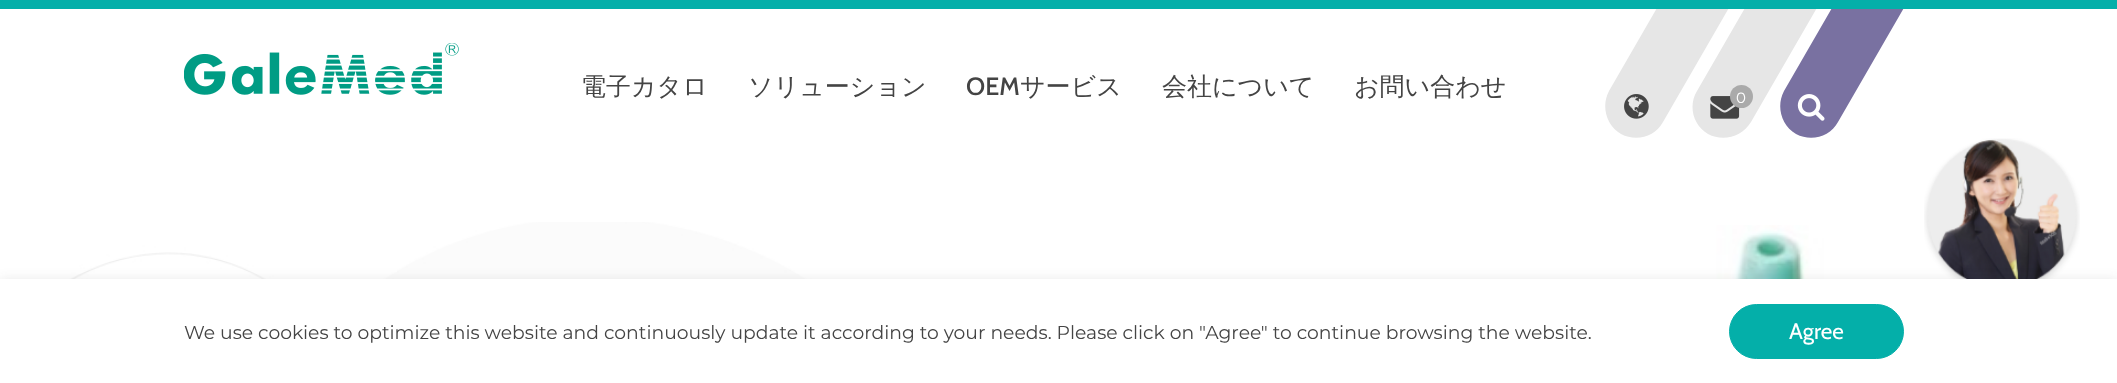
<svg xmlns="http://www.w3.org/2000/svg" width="2117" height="383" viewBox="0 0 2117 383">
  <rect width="100%" height="100%" fill="#fff"/>
  <path d="M1862-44L1916-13L1838 122C1830 137 1811 142 1796 134C1781 125 1776 106 1784 91Z" fill="#7971a1"/>
  <image x="1797" y="94" width="28" height="27" href="img/4.png"/>
  <path d="M1775-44L1829-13L1751 122C1742 137 1723 142 1708 134C1693 125 1688 106 1697 91Z" fill="#e6e6e6"/>
  <image x="1710" y="96" width="30" height="23" href="img/3.png"/>
  <circle cx="1741.5" cy="96.5" r="11.5" fill="#aaa"/>
  <path d="M1687-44L1741-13L1663 122C1655 137 1636 142 1621 134C1606 125 1601 106 1609 91Z" fill="#e6e6e6"/>
  <path d="M0 0h2117v9H0z" fill="#04afa9"/>
  <image x="184" y="43" width="275" height="52" href="img/1.png"/>
  <image x="1624" y="94" width="25" height="25" href="img/2.png"/>
  <image x="0" y="222" width="903" height="57" href="img/5.png"/>
  <image x="1316" y="225" width="508" height="54" href="img/6.png"/>
  <image x="1924" y="138" width="156" height="141" href="img/7.png"/>
  <path d="M0 279h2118v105H0z" fill="#3232321a" filter="blur(6px)"/>
  <path d="M0 279h2117v104H0z" fill="#fff"/>
  <rect x="1729.5" y="304.5" width="174" height="54" rx="27" fill="#04afa9" stroke="#04afa9"/>
  <g font-family="WenQuanYi Zen Hei" font-size="25" font-weight="500" fill="#444">
    <text x="581" y="95">電子カタロ</text>
    <text x="748" y="95">ソリューション</text>
  </g>
  <text x="966" y="95" font-family="Cabin" font-size="25" font-weight="500" fill="#444">OEM</text>
  <g font-family="WenQuanYi Zen Hei" font-size="25" font-weight="500" fill="#444">
    <text x="1020" y="95">サービス</text>
    <text x="1162" y="95">会社について</text>
    <text x="1354" y="95">お問い合わせ</text>
  </g>
  <text x="1736" y="103" font-family="Montserrat" font-size="15" fill="#fff">0</text>
  <text x="184" y="339" font-family="Montserrat" font-size="18.75" fill="#444">We use cookies to optimize this website and continuously update it according to your needs. Please click on "Agree" to continue browsing the website.</text>
  <text x="1789" y="339" font-family="Cabin" font-size="22.5" fill="#fff">Agree</text>
</svg>
